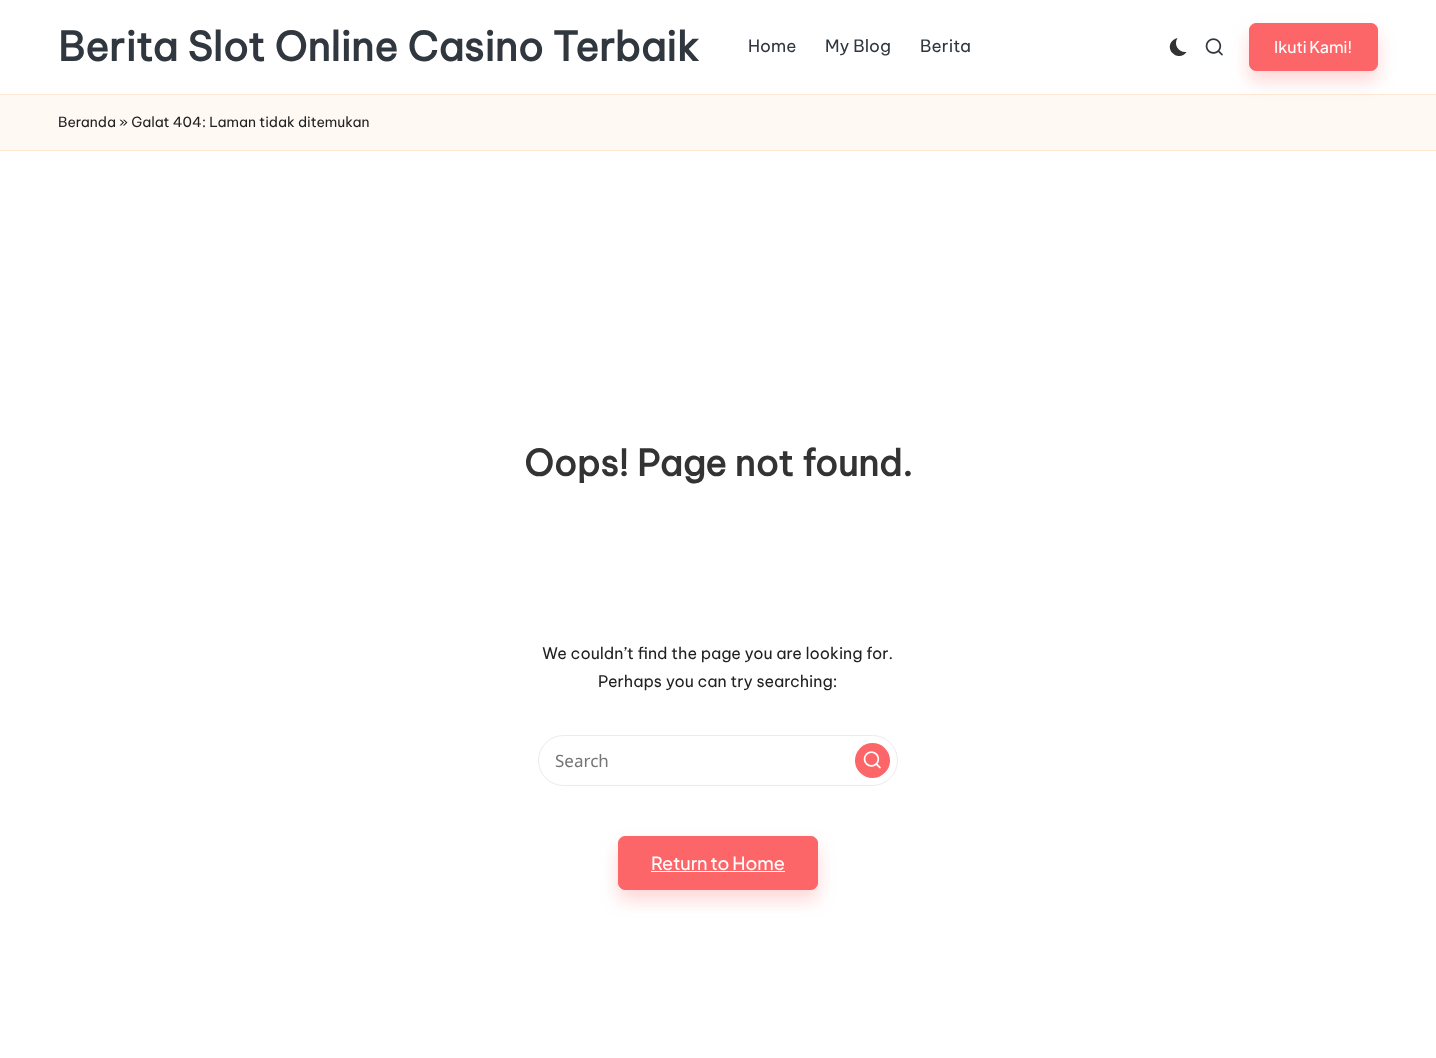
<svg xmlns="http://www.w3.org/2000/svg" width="1436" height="1058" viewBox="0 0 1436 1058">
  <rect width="100%" height="100%" fill="#fff"/>
  <path d="M1186.5 52C1179 53 1173 45 1177.5 38C1174.5 38.5 1172.5 40.5 1171 42.5C1165.5 52.5 1180.5 61.5 1186.5 52Z" fill="#333"/>
  <image x="1205" y="38" width="18" height="18" href="img/1.png"/>
  <path d="M0 95h1436v55H0z" fill="#fff9f3"/>
  <path d="M0 94h1436v1H0z" fill="#ffe7d2"/>
  <rect x="1249" y="33" width="129" height="48" rx="7" fill="#fc666845" filter="blur(9px)"/>
  <rect x="1249.5" y="23.5" width="128" height="47" rx="6.5" fill="#fc6668" stroke="#fc6668"/>
  <path d="M0 150h1436v1H0z" fill="#ffe7d2"/>
  <rect x="538.5" y="735.5" width="359" height="50" rx="25" fill="none" stroke="#ebebeb"/>
  <circle cx="872.5" cy="760.5" r="17.5" fill="#fc6668"/>
  <image x="863" y="751" width="18" height="18" href="img/2.png"/>
  <rect x="618" y="846" width="200" height="54" rx="7" fill="#fc666845" filter="blur(9px)"/>
  <rect x="618.5" y="836.5" width="199" height="53" rx="6.5" fill="#fc6668" stroke="#fc6668"/>
  <path d="M651 871h134v1H651z" fill="#fff"/>
  <text x="58" y="61" font-family="Be Vietnam Pro" font-size="40" font-weight="bold" fill="#30373e">Berita Slot Online Casino Terbaik</text>
  <g font-family="Be Vietnam Pro" font-size="17" fill="#30373e">
    <text x="748" y="52">Home</text>
    <text x="825" y="52">My Blog</text>
    <text x="920" y="52">Berita</text>
  </g>
  <text x="1274" y="53" font-family="Plus Jakarta Sans" font-size="16" font-weight="500" fill="#fff">Ikuti Kami!</text>
  <g font-family="Be Vietnam Pro" font-size="14" fill="#212121">
    <text x="58" y="127">Beranda</text>
    <text x="119" y="127">» Galat 404: Laman tidak ditemukan</text>
  </g>
  <text x="524" y="476" font-family="Be Vietnam Pro" font-size="36" font-weight="bold" fill="#333">Oops! Page not found.</text>
  <g font-family="Be Vietnam Pro" font-size="16" fill="#212121">
    <text x="542" y="659">We couldn’t find the page you are looking for.</text>
    <text x="598" y="687">Perhaps you can try searching:</text>
  </g>
  <text x="555" y="767" font-family="Noto Sans" font-size="17" fill="#757575">Search</text>
  <text x="651" y="870" font-family="Plus Jakarta Sans" font-size="18" font-weight="500" fill="#fff">Return to Home</text>
</svg>
